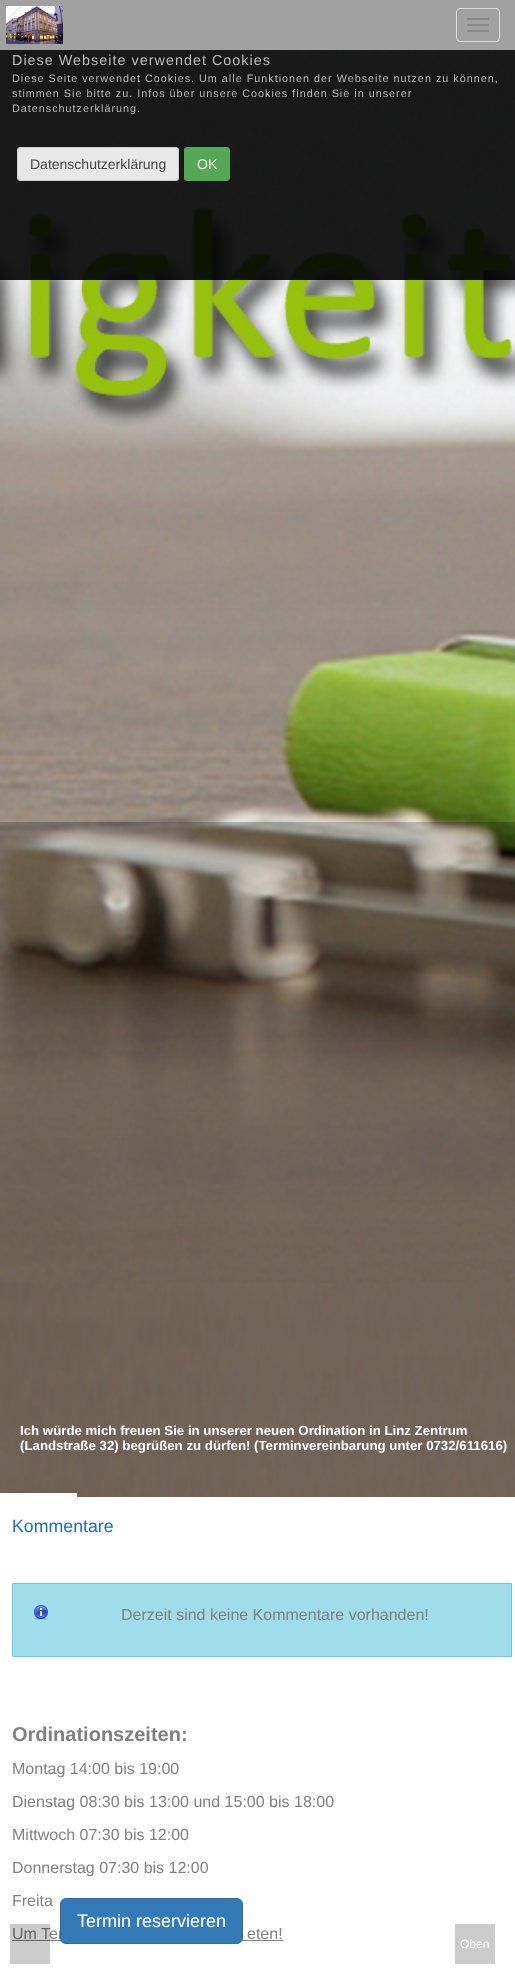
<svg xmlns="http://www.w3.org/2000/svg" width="515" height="1984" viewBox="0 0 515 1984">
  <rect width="100%" height="100%" fill="#fff"/>
  <path d="M0 0h515v50H0z" fill="#a1a1a1"/>
  <image x="6" y="6" width="57" height="38" href="img/1.png"/>
  <rect x="456.5" y="8.5" width="43" height="33" rx="3.5" fill="none" stroke="#ddd"/>
  <rect x="467" y="18" width="22" height="2" rx="1" fill="#888"/>
  <rect x="467" y="24" width="22" height="2" rx="1" fill="#888"/>
  <rect x="467" y="30" width="22" height="2" rx="1" fill="#888"/>
  <image x="0" y="50" width="515" height="1447" href="img/2.png"/>
  <path d="M0 50h515v230H0z" fill="#000000e6"/>
  <rect x="17" y="147" width="162" height="34" rx="4" fill="#e8e8e8"/>
  <rect x="17.5" y="147.5" width="161" height="33" rx="3.5" fill="none" stroke="#cccccce6"/>
  <rect x="184" y="147" width="46" height="34" rx="4" fill="#55a855"/>
  <rect x="184.5" y="147.5" width="45" height="33" rx="3.5" fill="none" stroke="#4cae4ce6"/>
  <path d="M0 822h515v675H0z" fill="#00000033"/>
  <path d="M0 1493h77v4H0z" fill="#fff"/>
  <path d="M13 1584h498v72H13z" fill="#9fddea"/>
  <image x="34" y="1605" width="14" height="15" href="img/3.png"/>
  <path d="M12.5 1583.5h499v73H12.5z" fill="none" stroke="#5fceea"/>
  <path d="M12 1940h271v1H12z" fill="#808080"/>
  <path d="M455 1924h40v40H455z" fill="#ccc"/>
  <text x="12" y="65" font-family="Liberation Sans" font-size="14.4" letter-spacing="1" fill="#bababa">Diese Webseite verwendet Cookies</text>
  <g font-family="Liberation Sans" font-size="10.8" letter-spacing="1" fill="#bababa">
    <text x="12" y="82">Diese Seite verwendet Cookies. Um alle Funktionen der Webseite nutzen zu können,</text>
    <text x="12" y="97">stimmen Sie bitte zu. Infos über unsere Cookies finden Sie in unserer</text>
    <text x="12" y="112">Datenschutzerklärung.</text>
  </g>
  <text x="30" y="169" font-family="Liberation Sans" font-size="14" fill="#454545">Datenschutzerklärung</text>
  <text x="197" y="169" font-family="Liberation Sans" font-size="14" fill="#eef6ee">OK</text>
  <g font-family="Liberation Sans" font-size="13.25" font-weight="bold" fill="#fff">
    <text x="20" y="1435">Ich würde mich freuen Sie in unserer neuen Ordination in Linz Zentrum</text>
    <text x="20" y="1450">(Landstraße 32) begrüßen zu dürfen! (Terminvereinbarung unter 0732/611616)</text>
  </g>
  <text x="12" y="1532" font-family="Liberation Sans" font-size="17.75" fill="#216bc0">Kommentare</text>
  <text x="121" y="1620" font-family="Liberation Sans" font-size="16" fill="#808080">Derzeit sind keine Kommentare vorhanden!</text>
  <text x="12" y="1741" font-family="Liberation Sans" font-size="20" font-weight="bold" fill="#808080">Ordinationszeiten:</text>
  <g font-family="Liberation Sans" font-size="16" fill="#808080">
    <text x="12" y="1774">Montag 14:00 bis 19:00</text>
    <text x="12" y="1807">Dienstag 08:30 bis 13:00 und 15:00 bis 18:00</text>
    <text x="12" y="1840">Mittwoch 07:30 bis 12:00</text>
    <text x="12" y="1873">Donnerstag 07:30 bis 12:00</text>
    <text x="12" y="1906">Freita</text>
    <text x="12" y="1939">Um Ter</text>
    <text x="247" y="1939">eten!</text>
  </g>
  <rect x="60.5" y="1898.5" width="182" height="45" rx="5.5" fill="#337ab7" stroke="#2e6da4"/>
  <text x="77" y="1927" font-family="Liberation Sans" font-size="18" fill="#fff">Termin reservieren</text>
  <path d="M10 1924h40v40H10z" fill="#00000033"/>
  <text x="460" y="1948" font-family="Liberation Sans" font-size="12" fill="#fff">Oben</text>
</svg>
